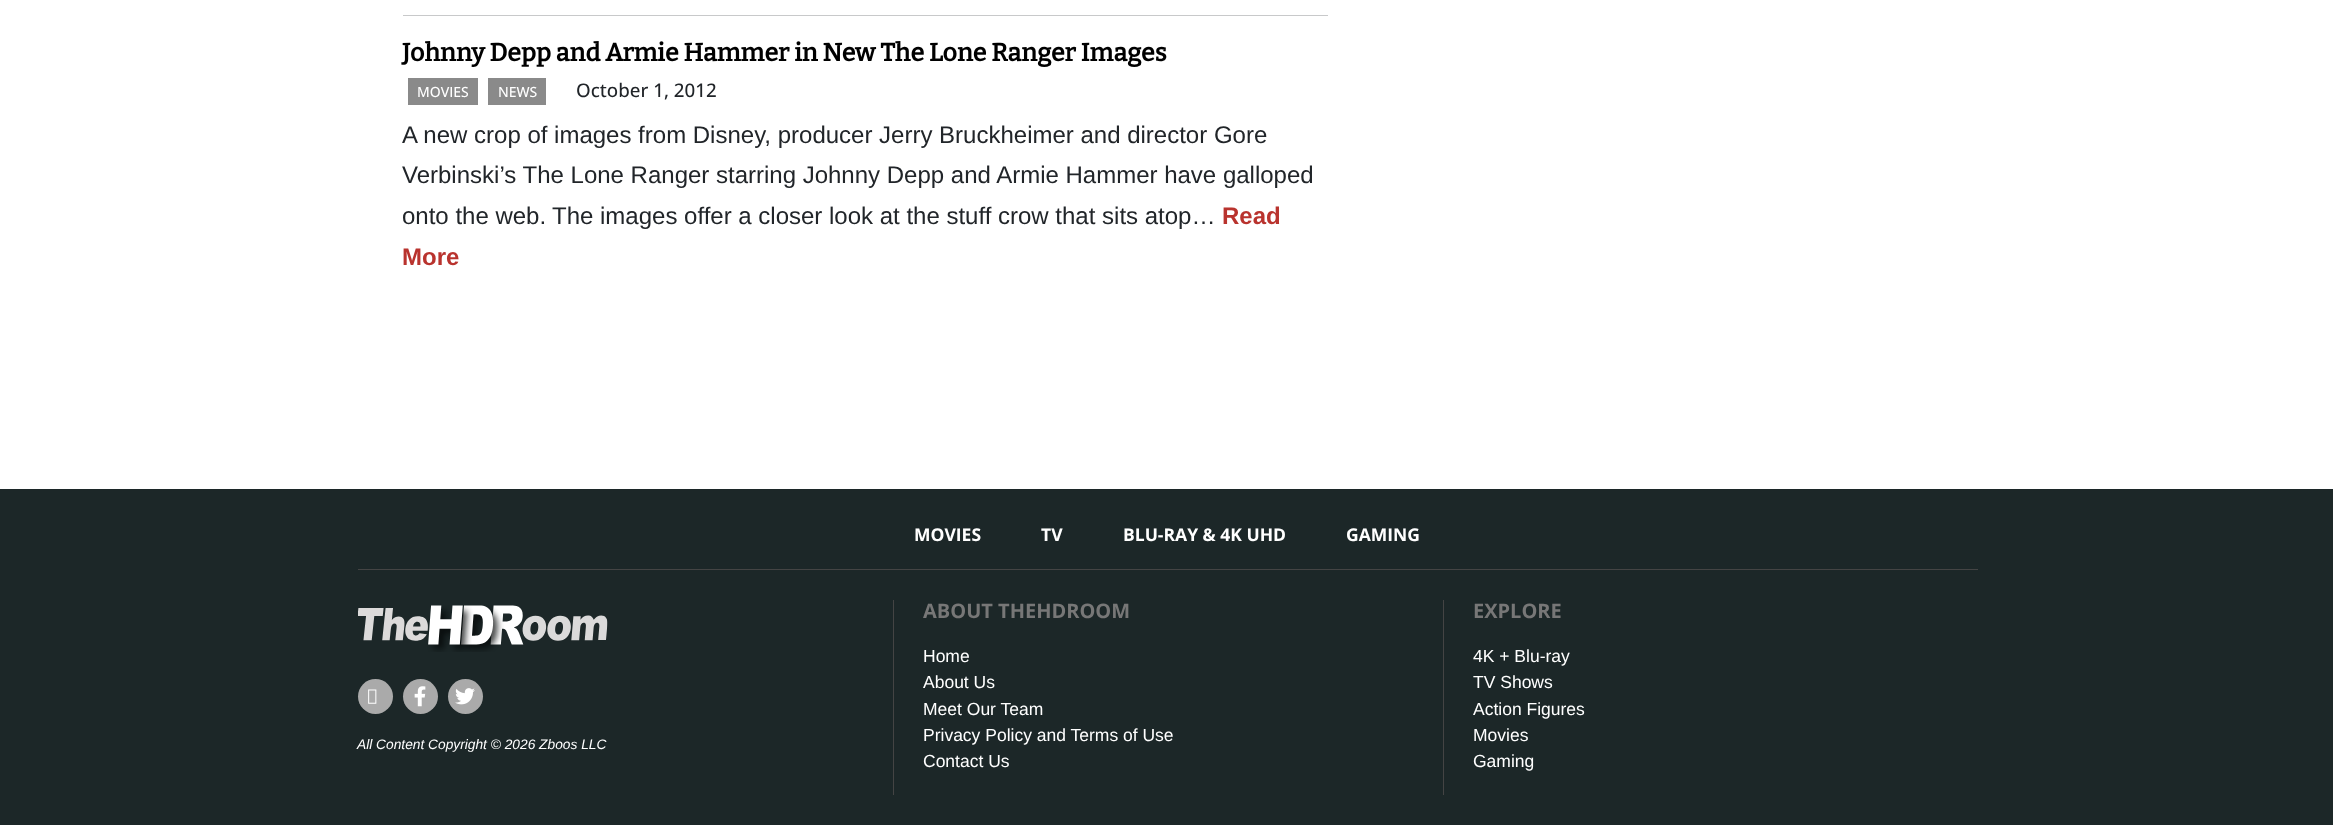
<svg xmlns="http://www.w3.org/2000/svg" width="2333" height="825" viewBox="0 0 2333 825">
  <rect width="100%" height="100%" fill="#fff"/>
  <path d="M403 15h925v1H403z" fill="#c8c9ca"/>
  <path d="M408 78h70v27H408z" fill="#8a8a8a"/>
  <path d="M488 78h58v27H488z" fill="#8a8a8a"/>
  <path d="M0 489h2333v336H0z" fill="#1c2728"/>
  <path d="M358 569h1620v1H358z" fill="#444"/>
  <image x="358" y="605" width="250" height="47" href="img/1.png"/>
  <circle cx="375.5" cy="696.5" r="17.5" fill="#aaa"/>
  <image x="368" y="689" width="9" height="15" href="img/2.png"/>
  <circle cx="420.5" cy="696.5" r="17.5" fill="#aaa"/>
  <image x="414" y="686" width="12" height="21" href="img/3.png"/>
  <circle cx="465.5" cy="696.5" r="17.5" fill="#aaa"/>
  <image x="455" y="688" width="20" height="17" href="img/4.png"/>
  <path d="M893 600h1v195H893z" fill="#444"/>
  <path d="M1443 600h1v195H1443z" fill="#444"/>
  <text x="402" y="61" font-family="Bitter" font-size="25" font-weight="bold" fill="#000">Johnny Depp and Armie Hammer in New The Lone Ranger Images</text>
  <g font-family="Open Sans" font-size="14" font-weight="500" fill="#fff">
    <text x="417" y="97">MOVIES</text>
    <text x="498" y="97">NEWS</text>
  </g>
  <text x="576" y="97" font-family="Open Sans" font-size="18.75" font-weight="500" fill="#212529">October 1, 2012</text>
  <g font-family="Liberation Sans" font-size="24" fill="#212529">
    <text x="402" y="143">A new crop of images from Disney, producer Jerry Bruckheimer and director Gore</text>
    <text x="402" y="183">Verbinski’s The Lone Ranger starring Johnny Depp and Armie Hammer have galloped</text>
    <text x="402" y="224">onto the web.</text>
    <text x="552" y="224">The images offer a closer look at the stuff crow that sits atop…</text>
  </g>
  <g font-family="Liberation Sans" font-size="24" font-weight="bold" fill="#b9332e">
    <text x="1222" y="224">Read</text>
    <text x="402" y="265">More</text>
  </g>
  <g font-family="Open Sans" font-size="17.5" font-weight="bold" fill="#fff">
    <text x="914" y="541">MOVIES</text>
    <text x="1041" y="541">TV</text>
    <text x="1123" y="541">BLU-RAY &amp; 4K UHD</text>
    <text x="1346" y="541">GAMING</text>
  </g>
  <text x="357" y="749" font-family="Liberation Sans" font-size="13.75" font-style="italic" fill="#fff">All Content Copyright © 2026 Zboos LLC</text>
  <text x="923" y="618" font-family="Open Sans" font-size="20" font-weight="bold" fill="#777">ABOUT THEHDROOM</text>
  <g font-family="Liberation Sans" font-size="17.5" fill="#fff">
    <text x="923" y="662">Home</text>
    <text x="923" y="688">About Us</text>
    <text x="923" y="715">Meet Our Team</text>
    <text x="923" y="741">Privacy Policy and Terms of Use</text>
    <text x="923" y="767">Contact Us</text>
  </g>
  <text x="1473" y="618" font-family="Open Sans" font-size="20" font-weight="bold" fill="#777">EXPLORE</text>
  <g font-family="Liberation Sans" font-size="17.5" fill="#fff">
    <text x="1473" y="662">4K + Blu-ray</text>
    <text x="1473" y="688">TV Shows</text>
    <text x="1473" y="715">Action Figures</text>
    <text x="1473" y="741">Movies</text>
    <text x="1473" y="767">Gaming</text>
  </g>
</svg>
